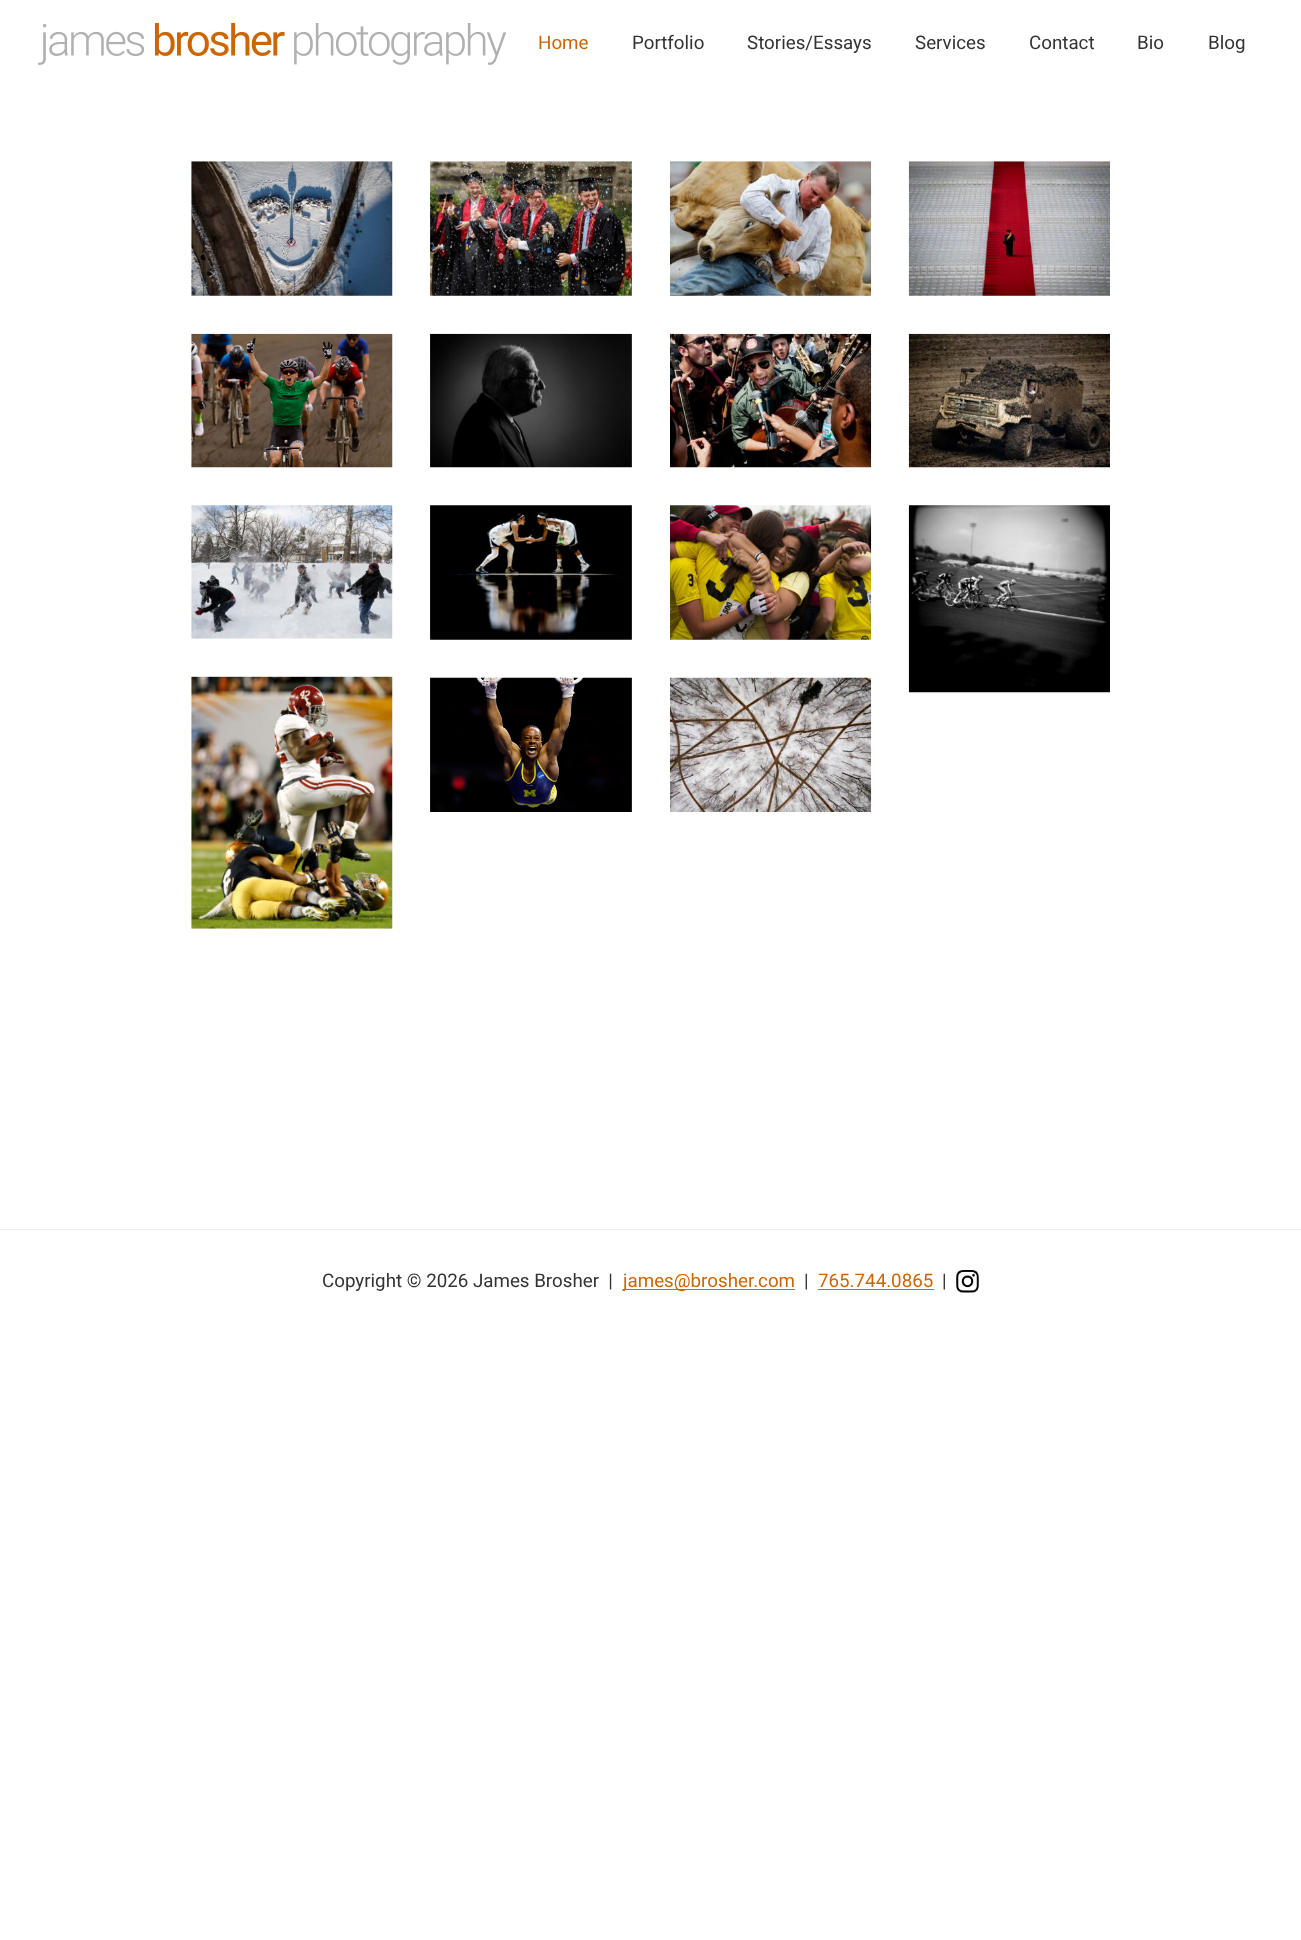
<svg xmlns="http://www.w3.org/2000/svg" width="1301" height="1940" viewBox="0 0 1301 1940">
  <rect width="100%" height="100%" fill="#fff"/>
  <image x="38" y="23" width="468" height="42" href="img/1.png"/>
  <image x="191" y="161" width="202" height="135" href="img/2.png"/>
  <image x="430" y="161" width="202" height="135" href="img/3.png"/>
  <image x="670" y="161" width="202" height="135" href="img/4.png"/>
  <image x="908" y="161" width="202" height="135" href="img/5.png"/>
  <image x="191" y="333" width="202" height="135" href="img/6.png"/>
  <image x="430" y="333" width="202" height="135" href="img/7.png"/>
  <image x="670" y="333" width="202" height="135" href="img/8.png"/>
  <image x="908" y="333" width="202" height="135" href="img/9.png"/>
  <image x="191" y="505" width="202" height="134" href="img/10.png"/>
  <image x="430" y="505" width="202" height="135" href="img/11.png"/>
  <image x="670" y="505" width="202" height="135" href="img/12.png"/>
  <image x="908" y="505" width="202" height="188" href="img/13.png"/>
  <image x="191" y="676" width="202" height="253" href="img/14.png"/>
  <image x="430" y="677" width="202" height="135" href="img/15.png"/>
  <image x="670" y="677" width="202" height="135" href="img/16.png"/>
  <path d="M0 1229h1301v1H0z" fill="#eee"/>
  <path d="M623 1289h172v1H623z" fill="#c60"/>
  <path d="M818 1289h116v1H818z" fill="#c60"/>
  <image x="956" y="1270" width="23" height="23" href="img/17.png"/>
  <text x="538" y="49" font-family="Roboto" font-size="18.75" fill="#c60">Home</text>
  <g font-family="Roboto" font-size="18.75" fill="#333">
    <text x="632" y="49">Portfolio</text>
    <text x="747" y="49">Stories/Essays</text>
    <text x="915" y="49">Services</text>
    <text x="1029" y="49">Contact</text>
    <text x="1137" y="49">Bio</text>
    <text x="1208" y="49">Blog</text>
    <text x="322" y="1287" xml:space="preserve">Copyright © 2026 James Brosher  |</text>
  </g>
  <text x="623" y="1287" font-family="Roboto" font-size="18.75" fill="#c60">james@brosher.com</text>
  <text x="804" y="1287" font-family="Roboto" font-size="18.75" fill="#333">|</text>
  <text x="818" y="1287" font-family="Roboto" font-size="18.75" fill="#c60">765.744.0865</text>
  <text x="942" y="1287" font-family="Roboto" font-size="18.75" fill="#333">|</text>
</svg>
